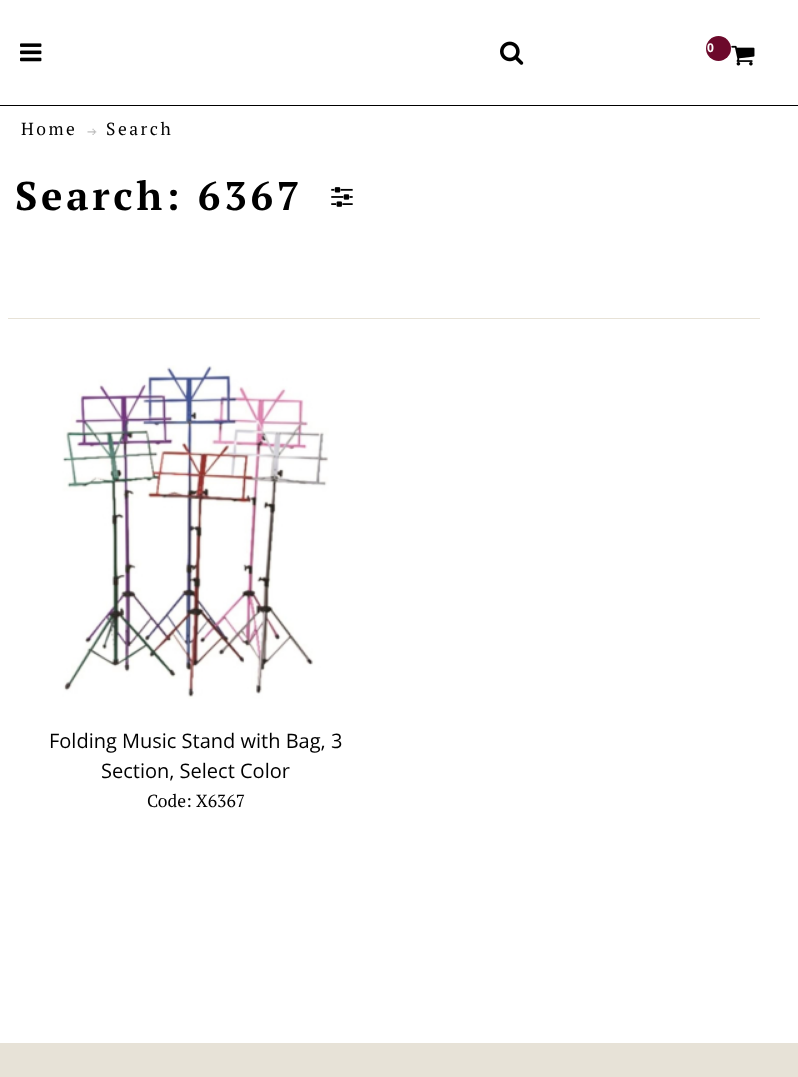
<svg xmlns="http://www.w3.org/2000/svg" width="798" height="1077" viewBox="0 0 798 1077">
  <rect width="100%" height="100%" fill="#fff"/>
  <path d="M0 105h798v1H0z" fill="#000"/>
  <image x="20" y="43" width="22" height="19" href="img/1.png"/>
  <image x="500" y="41" width="24" height="24" href="img/2.png"/>
  <circle cx="718.5" cy="48.5" r="12.5" fill="#6c092b"/>
  <image x="731" y="45" width="24" height="21" href="img/3.png"/>
  <image x="87" y="128" width="10" height="7" href="img/4.png"/>
  <image x="331" y="187" width="22" height="20" href="img/5.png"/>
  <path d="M8 318h752v1H8z" fill="#e7e2d7"/>
  <image x="62" y="365" width="267" height="334" href="img/6.png"/>
  <path d="M0 1043h798v34H0z" fill="#e7e2d7"/>
  <text x="707" y="52" font-family="Open Sans" font-size="12" font-weight="bold" fill="#fff">0</text>
  <g font-family="PT Serif" font-size="17.5" letter-spacing="2.5" fill="#000">
    <text x="21" y="135">Home</text>
    <text x="106" y="135">Search</text>
  </g>
  <text x="15" y="210" font-family="PT Serif" font-size="40" font-weight="bold" letter-spacing="3.75" fill="#000">Search: 6367</text>
  <g font-family="Open Sans" font-size="20" fill="#000">
    <text x="49" y="748">Folding Music Stand with Bag, 3</text>
    <text x="101" y="778">Section, Select Color</text>
  </g>
  <text x="147" y="807" font-family="PT Serif" font-size="17.5" fill="#000">Code: X6367</text>
</svg>
